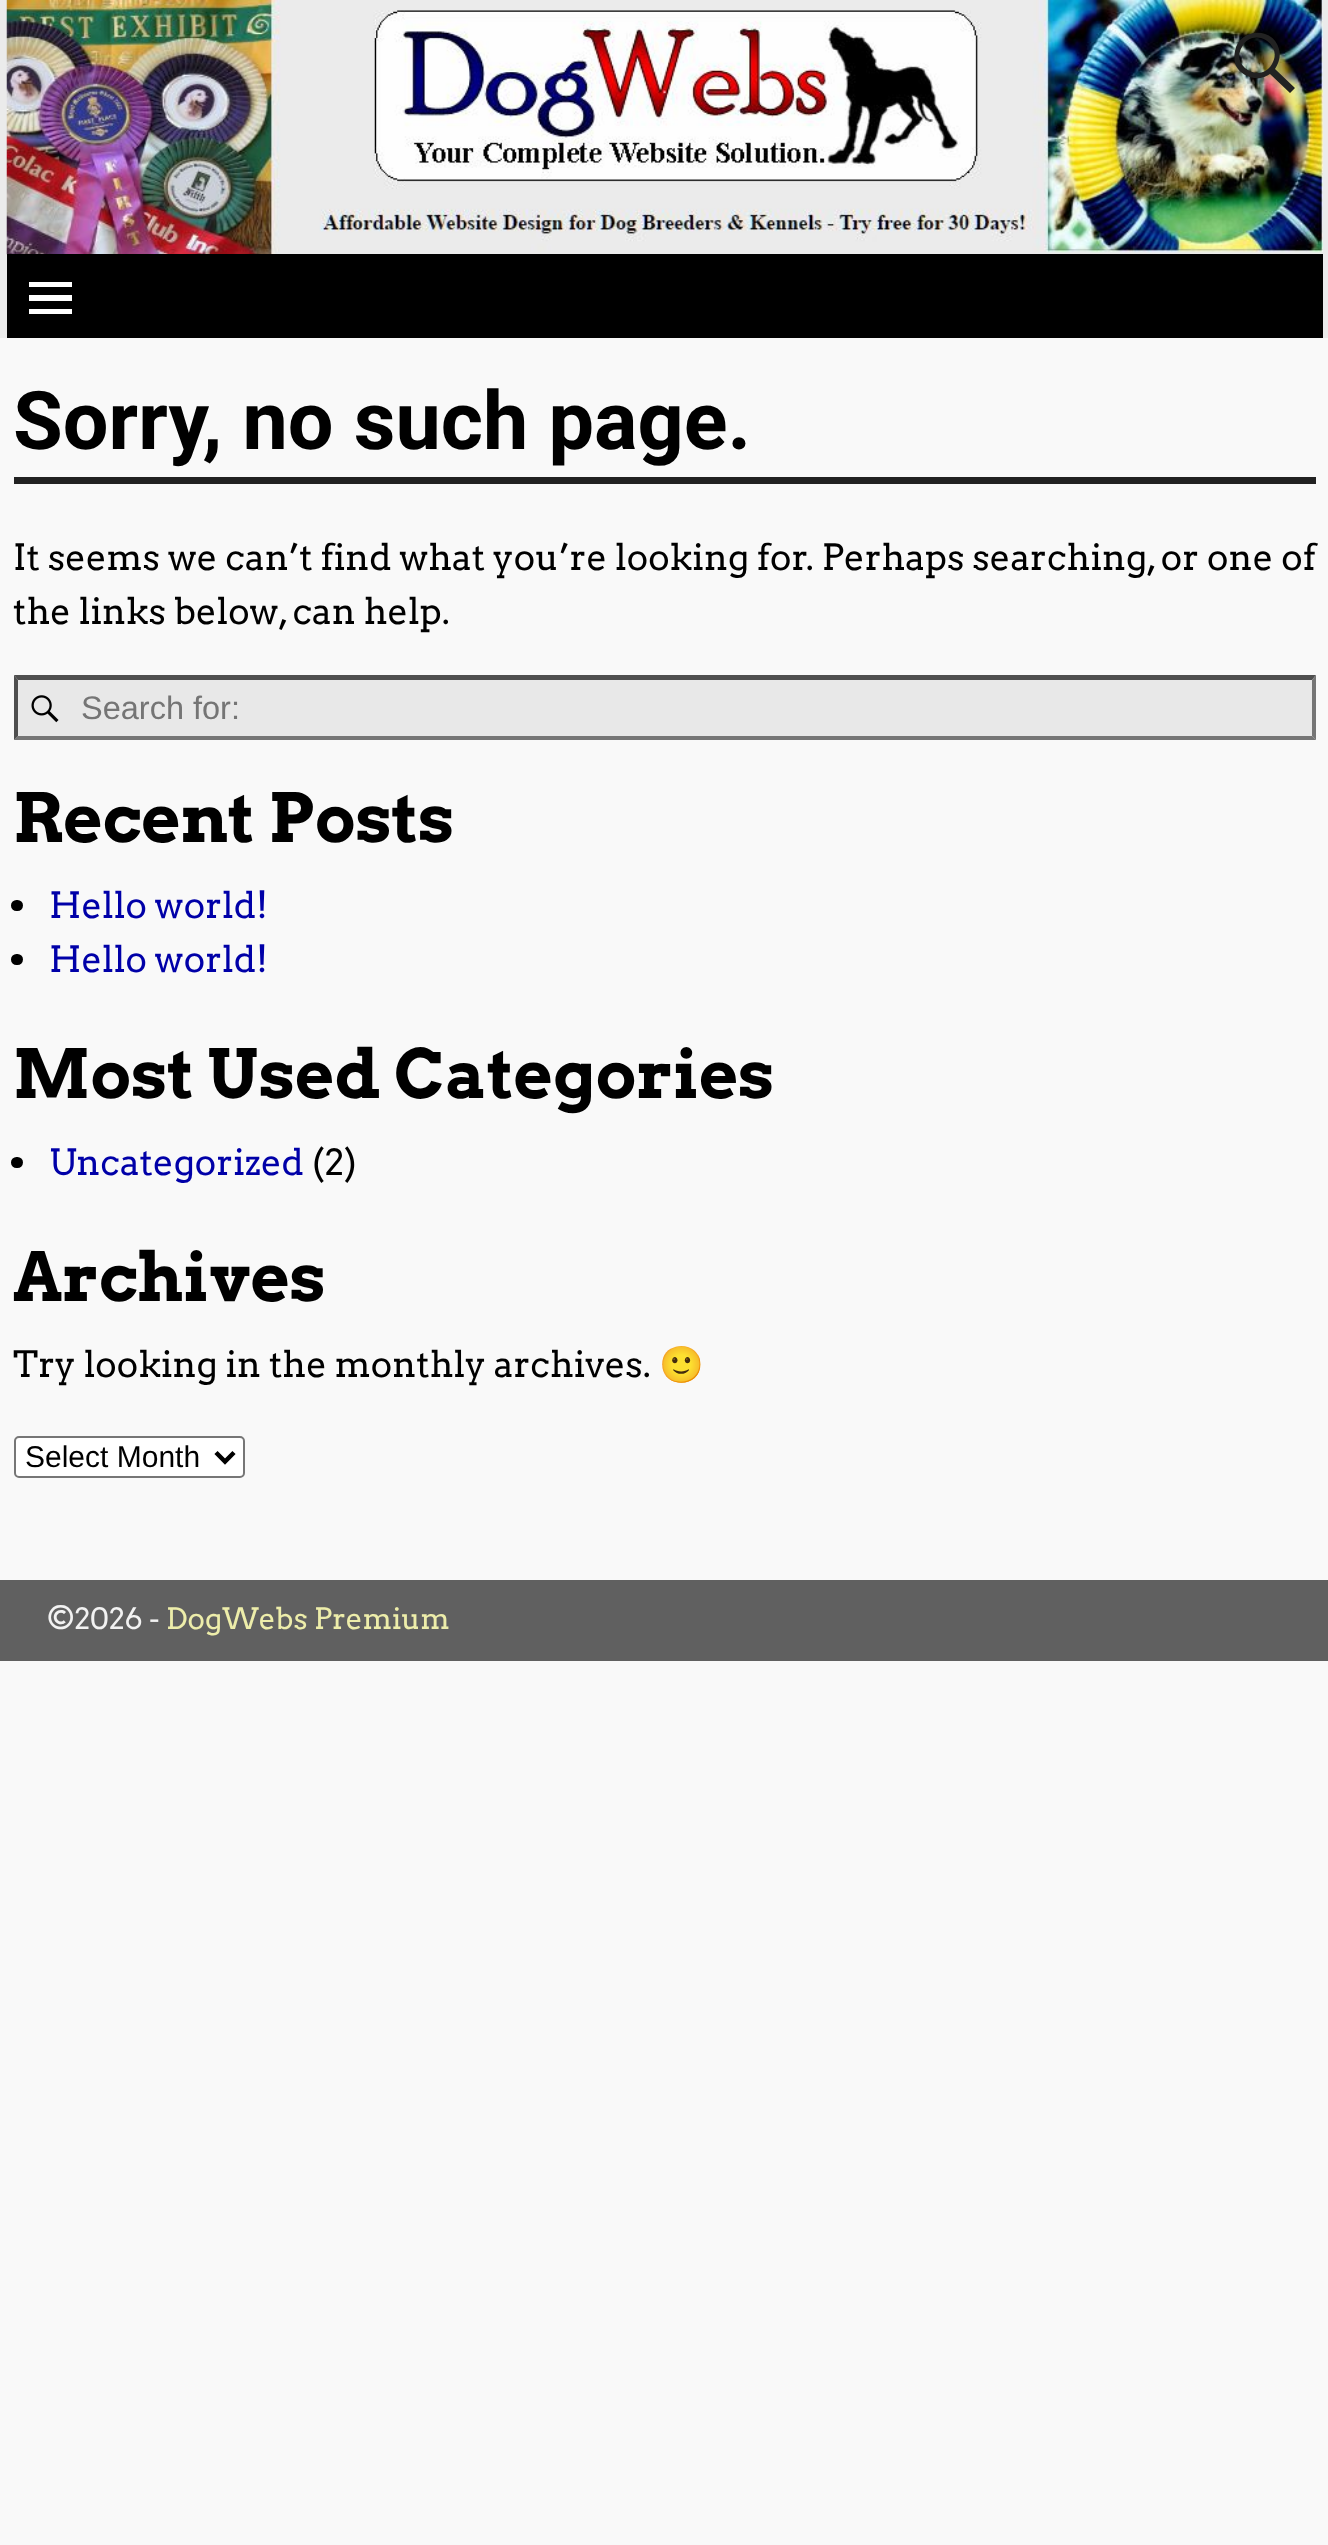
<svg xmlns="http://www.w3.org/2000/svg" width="1328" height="2545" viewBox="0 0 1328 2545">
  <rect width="100%" height="100%" fill="#f9f9f9"/>
  <path d="M0 0h1328v338H0z" fill="#ebebeb"/>
  <image x="6" y="0" width="1317" height="255" href="img/1.png"/>
  <path d="M1295 88L1290 93L1270 74C1259 82 1243 78 1236 66C1234 61 1234 56 1235 51C1239 28 1273 26 1279 49C1281 56 1279 63 1275 69ZM1242 47C1230 67 1261 84 1272 64C1284 44 1253 26 1242 47Z" fill="#222"/>
  <path d="M7 254h1316v84H7z" fill="#000"/>
  <path d="M29 314V309H72V314ZM29 282H72V287H29ZM29 301V295H72V301Z" fill="#fff"/>
  <path d="M14 477h1302v7H14z" fill="#222"/>
  <path d="M14 675h1302v65H14z" fill="#e8e8e8"/>
  <image x="31" y="695" width="28" height="28" href="img/2.png"/>
  <path d="M14 675H1316L1312 680H18Z" fill="#4f4f4f"/>
  <path d="M1316 675V740L1312 736V680Z" fill="#767676"/>
  <path d="M1316 740H14L18 736H1312Z" fill="#767676"/>
  <path d="M14 740V675L18 680V736Z" fill="#4f4f4f"/>
  <rect x="11" y="900" width="12" height="11" rx="5.5" fill="#000"/>
  <rect x="11" y="954" width="12" height="11" rx="5.5" fill="#000"/>
  <rect x="11" y="1157" width="12" height="11" rx="5.5" fill="#000"/>
  <rect x="15" y="1437" width="229" height="40" rx="4" fill="#fff" stroke="#767676" stroke-width="2"/>
  <path d="M216 1452.5L225 1461.5L234 1452.5" fill="none" stroke="#000" stroke-width="4.5"/>
  <path d="M0 1580h1328v81H0z" fill="#606060"/>
  <text x="13" y="449" font-family="Roboto" font-size="81" font-weight="bold" fill="#000">Sorry, no such page.</text>
  <g font-family="Arvo" font-size="36" fill="#000">
    <text x="13" y="570">It seems we can’t find what you’re looking for. Perhaps searching, or one of</text>
    <text x="13" y="624">the links below, can help.</text>
  </g>
  <text x="81" y="719" font-family="Liberation Sans" font-size="32.5" fill="#757575">Search for:</text>
  <text x="13" y="842" font-family="Arvo" font-size="67.5" font-weight="bold" fill="#000">Recent Posts</text>
  <g font-family="Arvo" font-size="36" fill="#0000a8">
    <text x="49" y="918">Hello world!</text>
    <text x="49" y="972">Hello world!</text>
  </g>
  <text x="13" y="1098" font-family="Arvo" font-size="67.5" font-weight="bold" fill="#000">Most Used Categories</text>
  <text x="49" y="1175" font-family="Arvo" font-size="36" fill="#0000a8">Uncategorized</text>
  <text x="312" y="1175" font-family="Arvo" font-size="36" fill="#000">(2)</text>
  <text x="13" y="1301" font-family="Arvo" font-size="67.5" font-weight="bold" fill="#000">Archives</text>
  <text x="13" y="1377" font-family="Arvo" font-size="36" fill="#000">Try looking in the monthly archives.</text>
  <text x="659" y="1377" font-family="Noto Color Emoji" font-size="36" fill="#000">🙂</text>
  <text x="25" y="1467" font-family="Liberation Sans" font-size="30" fill="#000">Select Month</text>
  <text x="47" y="1629" font-family="Arvo" font-size="29.25" fill="#f2f2f2">©2026 -</text>
  <text x="166" y="1629" font-family="Arvo" font-size="29.25" fill="#ededaa">DogWebs Premium</text>
</svg>
